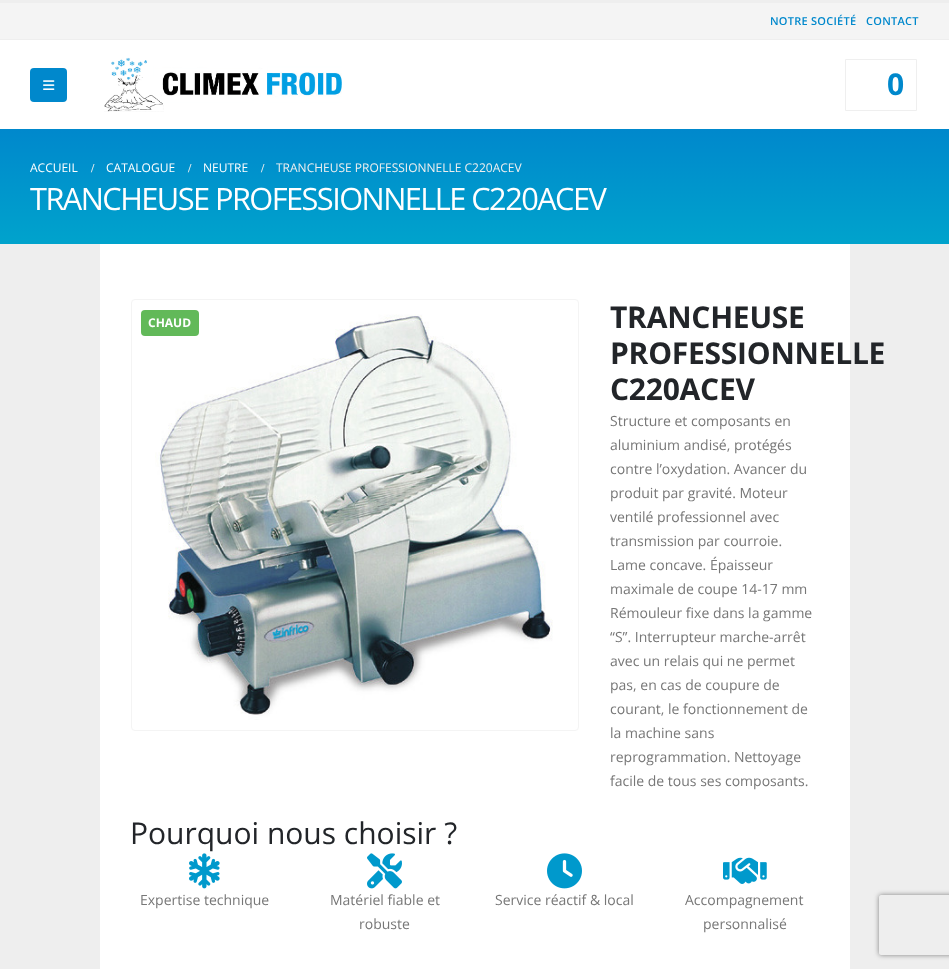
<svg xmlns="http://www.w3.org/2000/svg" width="949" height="969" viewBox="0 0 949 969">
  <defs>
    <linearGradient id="g1" gradientUnits="userSpaceOnUse" x1="475" y1="129" x2="475" y2="244"><stop offset="0" stop-color="#08c"/><stop offset="1" stop-color="#00a3cc"/></linearGradient>
    <clipPath id="clip1"><path d="M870 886H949V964H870ZM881 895H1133C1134 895 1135 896 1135 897V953C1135 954 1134 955 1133 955H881C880 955 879 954 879 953V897C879 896 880 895 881 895Z" clip-rule="evenodd"/></clipPath>
  </defs>
  <rect width="100%" height="100%" fill="#eee"/>
  <path d="M0 3h949v36H0z" fill="#f4f4f4"/>
  <path d="M0 40h949v89H0z" fill="#fff"/>
  <rect x="30" y="68" width="37" height="34" rx="4" fill="#08c"/>
  <image x="43" y="80" width="12" height="10" href="img/1.png"/>
  <image x="104" y="57" width="238" height="55" href="img/2.png"/>
  <path d="M845.5 59.5h71v51H845.5z" fill="none" stroke="#efefef"/>
  <path d="M0 129h949v115H0z" fill="url(#g1)"/>
  <path d="M100 244h750v725H100z" fill="#fff"/>
  <rect x="131.5" y="299.5" width="447" height="431" rx="3.5" fill="none" stroke="#f4f4f4"/>
  <image x="155" y="314" width="398" height="406" href="img/3.png"/>
  <rect x="141" y="310" width="58" height="26" rx="4" fill="#62b959"/>
  <image x="189" y="853" width="31" height="36" href="img/4.png"/>
  <image x="367" y="853" width="35" height="36" href="img/5.png"/>
  <image x="547" y="853" width="35" height="36" href="img/6.png"/>
  <image x="723" y="857" width="44" height="27" href="img/7.png"/>
  <g clip-path="url(#clip1)">
    <rect x="879" y="895" width="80" height="60" rx="2" fill="#808080" filter="blur(2.5px)"/>
  </g>
  <g font-family="Open Sans" font-size="11" font-weight="600" letter-spacing="0.25" fill="#08c">
    <text x="770" y="25">NOTRE SOCIÉTÉ</text>
    <text x="866" y="25">CONTACT</text>
  </g>
  <text x="887" y="95" font-family="Open Sans" font-size="30" font-weight="bold" fill="#08c">0</text>
  <text x="30" y="172" font-family="Open Sans" font-size="12" fill="#fff">ACCUEIL</text>
  <text x="91" y="172" font-family="Liberation Serif" font-size="12" font-weight="bold" fill="#efefef">/</text>
  <text x="106" y="172" font-family="Open Sans" font-size="12" fill="#fff">CATALOGUE</text>
  <text x="188" y="172" font-family="Liberation Serif" font-size="12" font-weight="bold" fill="#efefef">/</text>
  <text x="203" y="172" font-family="Open Sans" font-size="12" fill="#fff">NEUTRE</text>
  <text x="261" y="172" font-family="Liberation Serif" font-size="12" font-weight="bold" fill="#efefef">/</text>
  <text x="276" y="172" font-family="Open Sans" font-size="12" fill="#efefef">TRANCHEUSE PROFESSIONNELLE C220ACEV</text>
  <text x="30" y="210" font-family="Open Sans" font-size="30.75" letter-spacing="-1.55" fill="#fff">TRANCHEUSE PROFESSIONNELLE C220ACEV</text>
  <text x="148" y="327" font-family="Open Sans" font-size="12" font-weight="bold" fill="#fff">CHAUD</text>
  <g font-family="Open Sans" font-size="30" font-weight="bold" letter-spacing="-0.25" fill="#222529">
    <text x="610" y="328">TRANCHEUSE</text>
    <text x="610" y="364">PROFESSIONNELLE</text>
    <text x="610" y="400">C220ACEV</text>
  </g>
  <g font-family="Open Sans" font-size="14" fill="#777">
    <text x="610" y="426">Structure et composants en</text>
    <text x="610" y="450">aluminium andisé, protégés</text>
    <text x="610" y="474">contre l’oxydation. Avancer du</text>
    <text x="610" y="498">produit par gravité. Moteur</text>
    <text x="610" y="522">ventilé professionnel avec</text>
    <text x="610" y="546">transmission par courroie.</text>
    <text x="610" y="570">Lame concave. Épaisseur</text>
    <text x="610" y="594">maximale de coupe 14-17 mm</text>
    <text x="610" y="618">Rémouleur fixe dans la gamme</text>
    <text x="610" y="642">“S”. Interrupteur marche-arrêt</text>
    <text x="610" y="666">avec un relais qui ne permet</text>
    <text x="610" y="690">pas, en cas de coupure de</text>
    <text x="610" y="714">courant, le fonctionnement de</text>
    <text x="610" y="738">la machine sans</text>
    <text x="610" y="762">reprogrammation. Nettoyage</text>
    <text x="610" y="786">facile de tous ses composants.</text>
  </g>
  <text x="130" y="844" font-family="Open Sans" font-size="30" fill="#222529">Pourquoi nous choisir ?</text>
  <g font-family="Open Sans" font-size="14" fill="#777">
    <text x="140" y="905">Expertise technique</text>
    <text x="330" y="905">Matériel fiable et</text>
    <text x="359" y="929">robuste</text>
    <text x="495" y="905">Service réactif &amp; local</text>
    <text x="685" y="905">Accompagnement</text>
    <text x="703" y="929">personnalisé</text>
  </g>
</svg>
